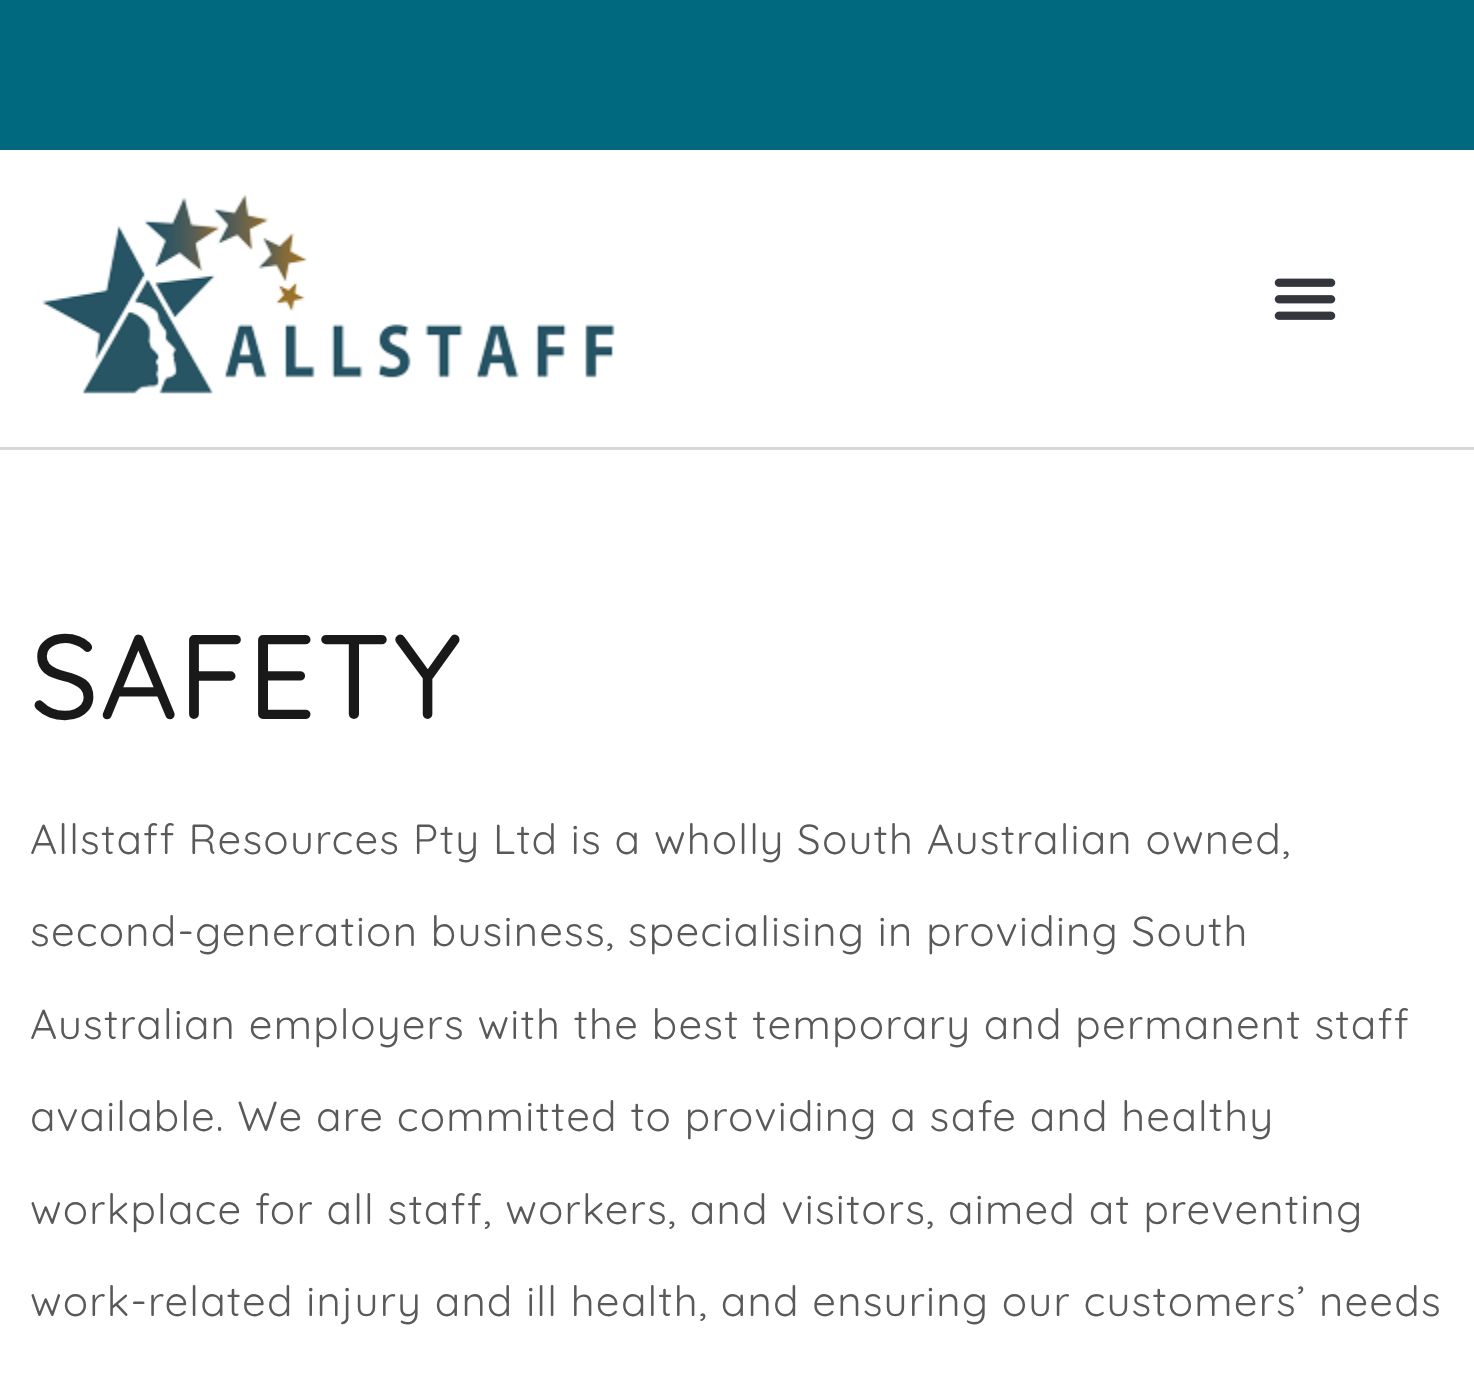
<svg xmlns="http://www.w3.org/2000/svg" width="1474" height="1395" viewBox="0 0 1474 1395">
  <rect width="100%" height="100%" fill="#fff"/>
  <path d="M0 0h1474v150H0z" fill="#006980"/>
  <path d="M0 447h1474v3H0z" fill="#d8d8d8"/>
  <image x="41" y="194" width="574" height="200" href="img/1.png"/>
  <image x="1274" y="278" width="62" height="42" href="img/2.png"/>
  <text x="30" y="719" font-family="Quicksand" font-size="120" font-weight="500" letter-spacing="1.2" fill="#191919">SAFETY</text>
  <g font-family="Quicksand" font-size="42" letter-spacing="1.2" fill="#595959">
    <text x="30" y="854">Allstaff Resources Pty Ltd is a wholly South Australian owned,</text>
    <text x="30" y="946">second-generation business, specialising in providing South</text>
    <text x="30" y="1039">Australian employers with the best temporary and permanent staff</text>
    <text x="30" y="1131">available. We are committed to providing a safe and healthy</text>
    <text x="30" y="1224">workplace for all staff, workers, and visitors, aimed at preventing</text>
    <text x="30" y="1316">work-related injury and ill health, and ensuring our customers’ needs</text>
  </g>
</svg>
